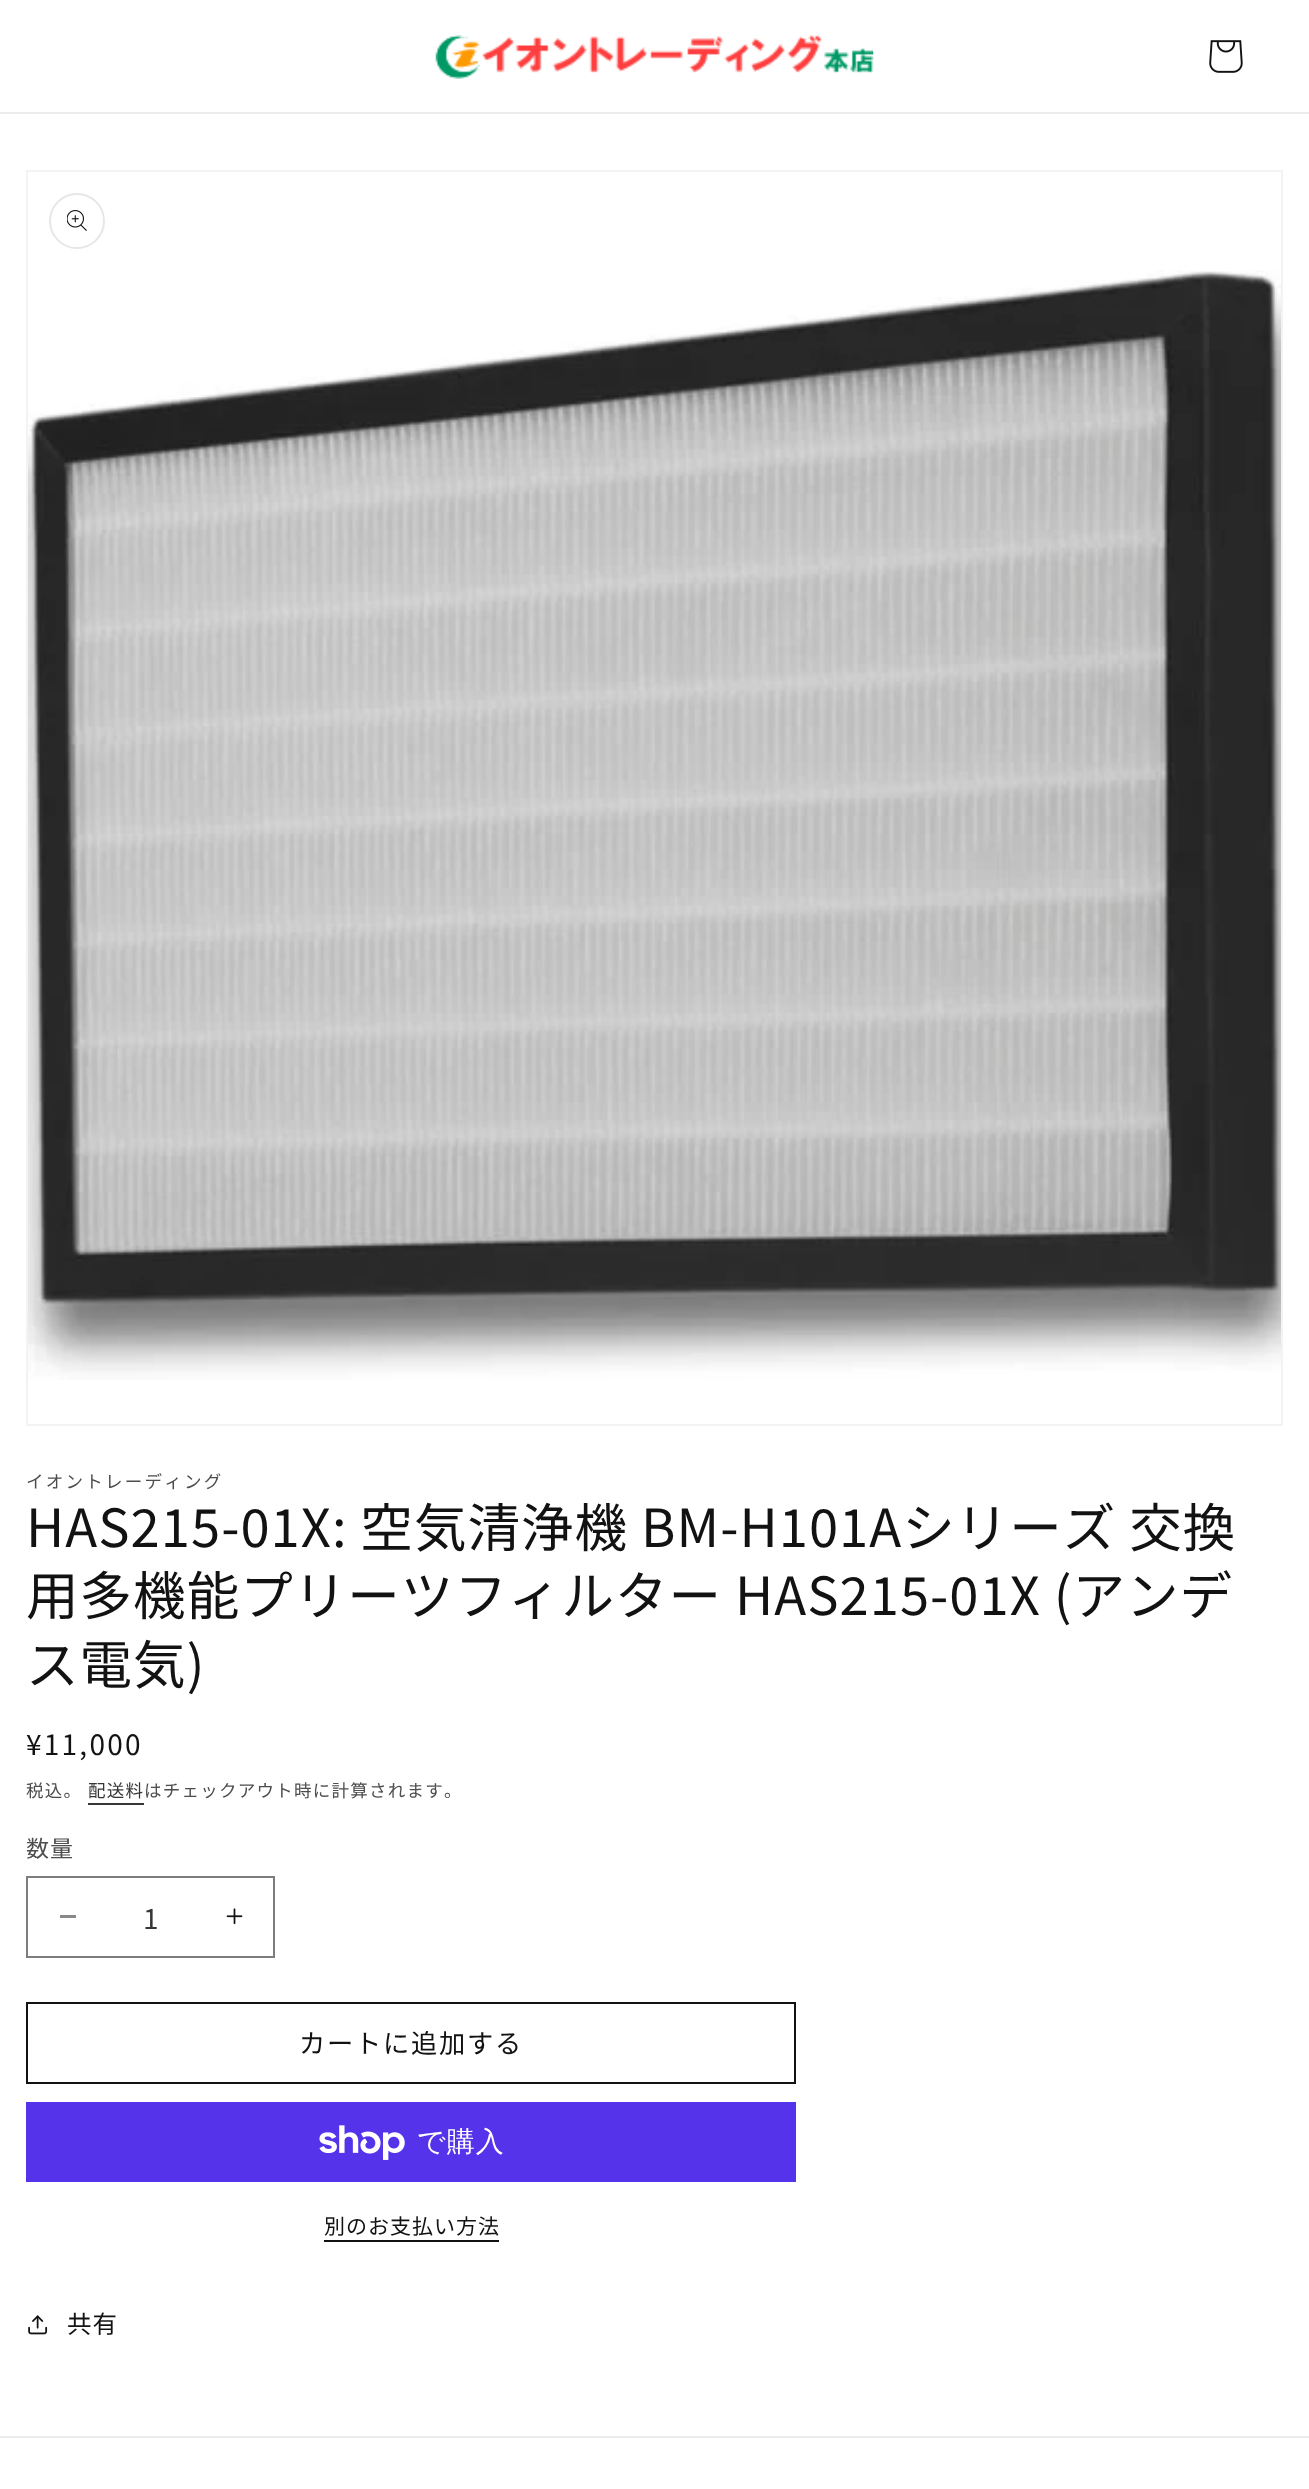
<svg xmlns="http://www.w3.org/2000/svg" width="1309" height="2489" viewBox="0 0 1309 2489">
  <style>*{font-kerning:none!important;font-variant-ligatures:none!important}</style>
  <rect width="100%" height="100%" fill="#fff"/>
  <path d="M0 112h1309v2H0z" fill="#ececec"/>
  <image x="435" y="35" width="439" height="44" href="img/1.png"/>
  <image x="1209" y="40" width="34" height="33" href="img/2.png"/>
  <path d="M27 171h1255v1254H27z" fill="none" stroke="#f3f3f3" stroke-width="2"/>
  <circle cx="77" cy="221" r="27" fill="none" stroke="#e7e7e7" stroke-width="2"/>
  <image x="67" y="210" width="20" height="21" href="img/3.png"/>
  <image x="28" y="270" width="1253" height="1110" href="img/4.png"/>
  <path d="M88 1803h56v2H88z" fill="#363636"/>
  <path d="M60 1915h16v3H60z" fill="#898989"/>
  <image x="226" y="1908" width="17" height="17" href="img/5.png"/>
  <path d="M27 1877h247v80H27z" fill="none" stroke="#7d7d7d" stroke-width="2"/>
  <path d="M27 2003h768v80H27z" fill="none" stroke="#121212" stroke-width="2"/>
  <path d="M26 2102h770v80H26z" fill="#5433eb"/>
  <image x="319" y="2125" width="86" height="35" href="img/6.png"/>
  <path d="M324 2240h175v2H324z" fill="#121212"/>
  <image x="28" y="2315" width="20" height="20" href="img/7.png"/>
  <path d="M0 2436h1309v2H0z" fill="#ececec"/>
  <text x="26" y="1488" font-family="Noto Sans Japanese" font-size="17.5" letter-spacing="2.25" fill="#4d4d4d">イオントレーディング</text>
  <g font-family="Noto Sans Japanese" font-size="52.5" letter-spacing="1.05" fill="#121212">
    <text x="26" y="1547">HAS215-01X: 空気清浄機 BM-H101Aシリーズ 交換</text>
    <text x="26" y="1615">用多機能プリーツフィルター HAS215-01X (アンデ</text>
    <text x="26" y="1684">ス電気)</text>
  </g>
  <text x="26" y="1755" font-family="Noto Sans Japanese" font-size="28" letter-spacing="2.25" fill="#121212">¥11,000</text>
  <text x="26" y="1797" font-family="Noto Sans Japanese" font-size="17.5" letter-spacing="1.25" fill="#4d4d4d">税込。</text>
  <text x="88" y="1797" font-family="Noto Sans Japanese" font-size="17.5" letter-spacing="1.25" fill="#363636">配送料</text>
  <text x="144" y="1797" font-family="Noto Sans Japanese" font-size="17.5" letter-spacing="1.25" fill="#4d4d4d">はチェックアウト時に計算されます。</text>
  <text x="26" y="1857" font-family="Noto Sans Japanese" font-size="23" letter-spacing="1" fill="#4d4d4d">数量</text>
  <text x="143" y="1929" font-family="Noto Sans Japanese" font-size="28" fill="#363636">1</text>
  <text x="299" y="2053" font-family="Noto Sans Japanese" font-size="26.25" letter-spacing="1.75" fill="#121212">カートに追加する</text>
  <text x="417" y="2151" font-family="WenQuanYi Zen Hei" font-size="28" font-weight="500" letter-spacing="1.05" fill="#fff">で購入</text>
  <text x="324" y="2234" font-family="Noto Sans Japanese" font-size="21" letter-spacing="1" fill="#121212">別のお支払い方法</text>
  <text x="67" y="2333" font-family="Noto Sans Japanese" font-size="24.5" letter-spacing="1.05" fill="#121212">共有</text>
</svg>
